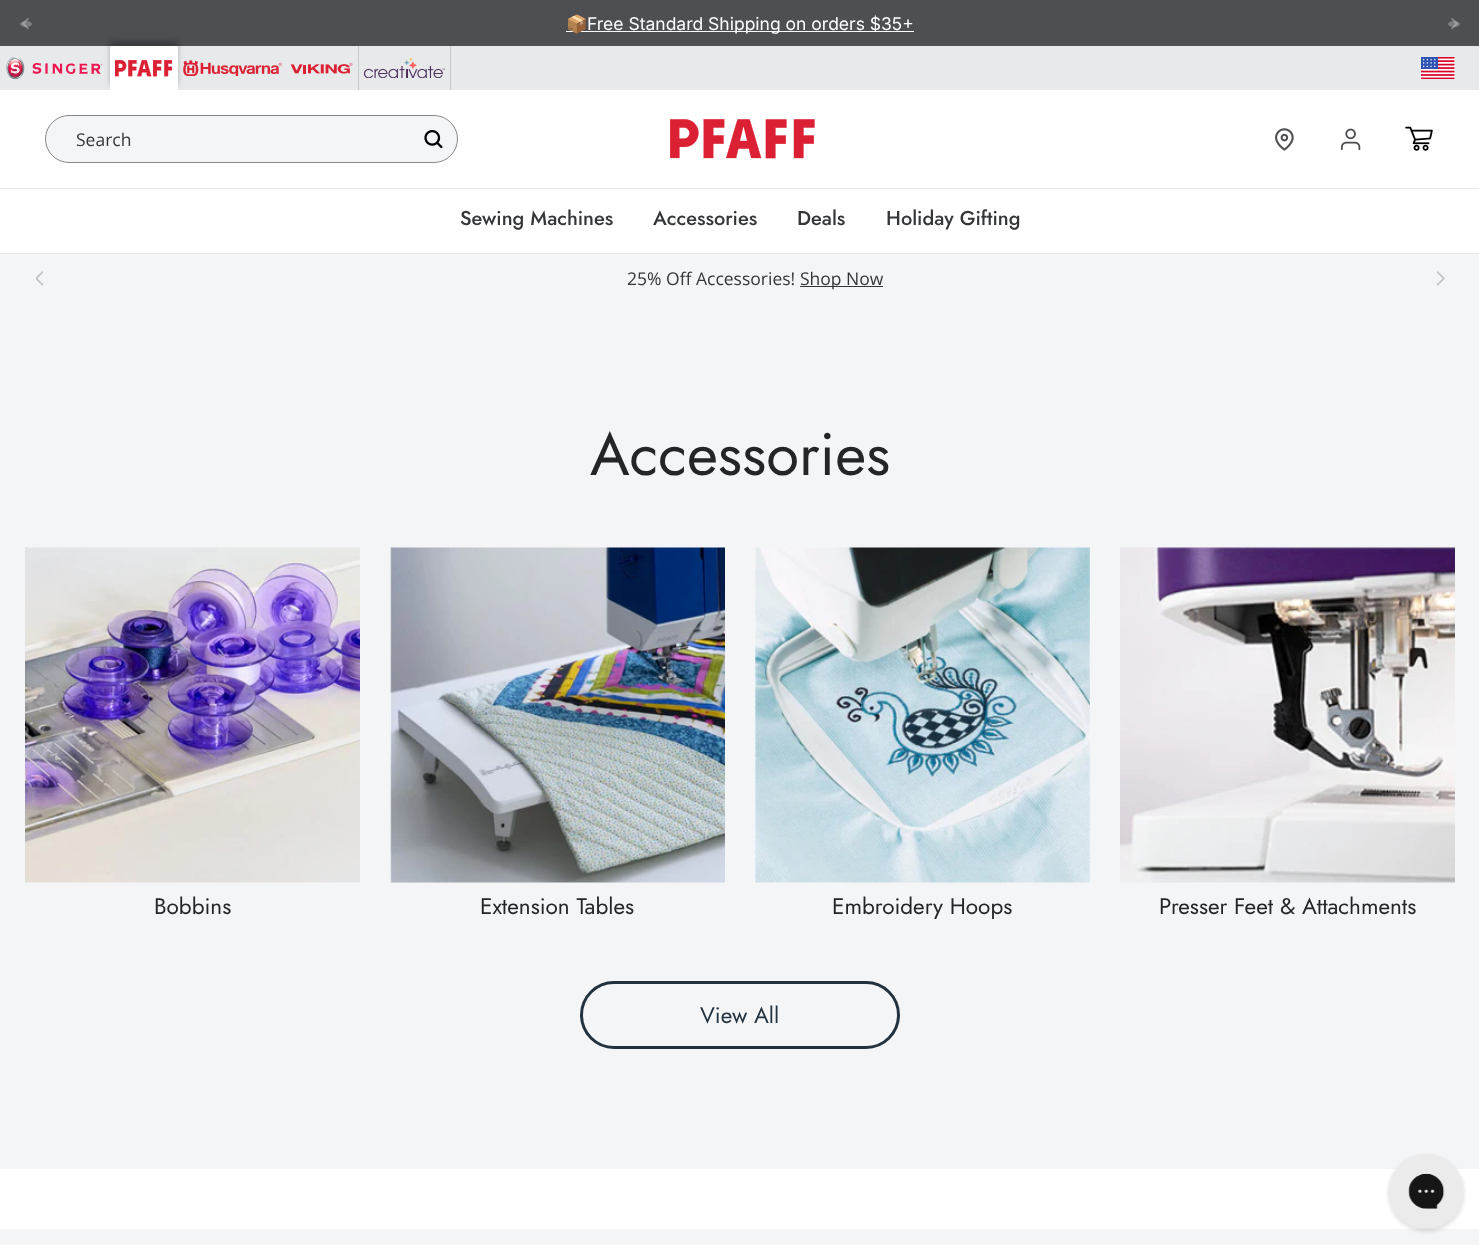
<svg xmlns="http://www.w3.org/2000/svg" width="1479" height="1245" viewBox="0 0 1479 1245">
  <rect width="100%" height="100%" fill="#fff"/>
  <path d="M0 0h1479v46H0z" fill="#4d4f53"/>
  <path d="M566 31h348v1H566z" fill="#fff"/>
  <ellipse cx="26" cy="24" rx="6" ry="3" fill="#7c7d81"/>
  <image x="22" y="17" width="7" height="13" href="img/1.png"/>
  <ellipse cx="1454" cy="24" rx="6" ry="3" fill="#7c7d81"/>
  <image x="1451" y="17" width="7" height="13" href="img/2.png"/>
  <path d="M0 46h1479v44H0z" fill="#e8e9eb"/>
  <image x="6" y="57" width="97" height="22" href="img/3.png"/>
  <image x="183" y="60" width="99" height="16" href="img/5.png"/>
  <path d="M110 41h68v44H110z" fill="#00000040" filter="blur(2.5px)"/>
  <path d="M110 46h68v44H110z" fill="#fff"/>
  <image x="115" y="60" width="57" height="17" href="img/4.png"/>
  <path d="M358 46h1v44H358z" fill="#c6c8cc"/>
  <image x="290" y="63" width="63" height="11" href="img/6.png"/>
  <path d="M450 46h1v44H450z" fill="#c6c8cc"/>
  <image x="364" y="58" width="81" height="20" href="img/7.png"/>
  <image x="1421" y="57" width="34" height="22" href="img/8.png"/>
  <rect x="45.5" y="115.5" width="412" height="47" rx="23.5" fill="#f4f5f7" stroke="#888"/>
  <image x="424" y="130" width="19" height="19" href="img/9.png"/>
  <image x="669" y="119" width="146" height="40" href="img/10.png"/>
  <image x="1275" y="128" width="19" height="23" href="img/11.png"/>
  <image x="1340" y="128" width="21" height="23" href="img/12.png"/>
  <image x="1405" y="126" width="28" height="25" href="img/13.png"/>
  <path d="M0 188h1479v1H0z" fill="#e8e9eb"/>
  <path d="M0 253h1479v1H0z" fill="#e8e9eb"/>
  <path d="M0 254h1479v915H0z" fill="#f4f5f7"/>
  <image x="36" y="271" width="8" height="15" href="img/14.png"/>
  <image x="1436" y="271" width="9" height="15" href="img/15.png"/>
  <path d="M800 286h83v1H800z" fill="#343638"/>
  <image x="25" y="547" width="335" height="336" href="img/16.png"/>
  <image x="390" y="547" width="335" height="336" href="img/17.png"/>
  <image x="755" y="547" width="335" height="336" href="img/18.png"/>
  <image x="1120" y="547" width="335" height="336" href="img/19.png"/>
  <rect x="581.5" y="982.5" width="317" height="65" rx="32.5" fill="none" stroke="#23323f" stroke-width="3"/>
  <path d="M0 1229h1479v16H0z" fill="#f4f5f7"/>
  <image x="1386" y="1153" width="80" height="81" href="img/20.png"/>
  <text x="566" y="30" font-family="Noto Color Emoji" font-size="17.5" fill="#fff">📦</text>
  <text x="587" y="30" font-family="Inter" font-size="17.5" fill="#fff">Free Standard Shipping on orders $35+</text>
  <text x="76" y="146" font-family="Open Sans" font-size="17.5" fill="#343638">Search</text>
  <g font-family="Jost" font-size="20" font-weight="500" fill="#343638">
    <text x="460" y="225">Sewing Machines</text>
    <text x="653" y="225">Accessories</text>
    <text x="797" y="225">Deals</text>
    <text x="886" y="225">Holiday Gifting</text>
  </g>
  <g font-family="Open Sans" font-size="17.5" fill="#343638">
    <text x="627" y="285">25% Off Accessories!</text>
    <text x="800" y="285">Shop Now</text>
  </g>
  <text x="590" y="475" font-family="Jost" font-size="60" fill="#232627">Accessories</text>
  <g font-family="Jost" font-size="22.5" fill="#232627">
    <text x="154" y="914">Bobbins</text>
    <text x="480" y="914">Extension Tables</text>
    <text x="832" y="914">Embroidery Hoops</text>
    <text x="1159" y="914">Presser Feet &amp; Attachments</text>
  </g>
  <text x="700" y="1023" font-family="Jost" font-size="22.5" fill="#23323f">View All</text>
</svg>
